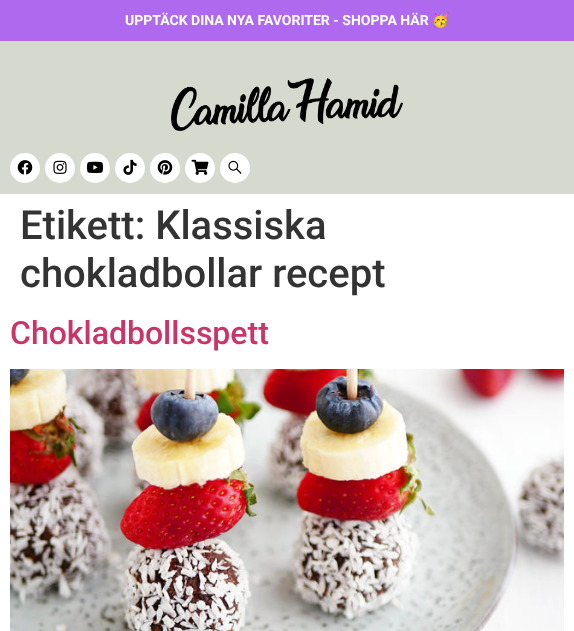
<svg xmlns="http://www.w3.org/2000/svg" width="574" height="631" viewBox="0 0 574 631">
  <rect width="100%" height="100%" fill="#fff"/>
  <path d="M0 0h574v41H0z" fill="#ae69ee"/>
  <path d="M0 41h574v153H0z" fill="#d6d9cd"/>
  <image x="171" y="78" width="232" height="53" href="img/1.png"/>
  <circle cx="25" cy="168" r="15" fill="#fff"/>
  <image x="17" y="160" width="16" height="15" href="img/2.png"/>
  <circle cx="60" cy="168" r="15" fill="#fff"/>
  <image x="53" y="160" width="14" height="14" href="img/3.png"/>
  <circle cx="95" cy="168" r="15" fill="#fff"/>
  <image x="87" y="161" width="16" height="12" href="img/4.png"/>
  <circle cx="130" cy="168" r="15" fill="#fff"/>
  <image x="123" y="159" width="14" height="16" href="img/5.png"/>
  <circle cx="165" cy="168" r="15" fill="#fff"/>
  <image x="157" y="160" width="16" height="15" href="img/6.png"/>
  <circle cx="200" cy="168" r="15" fill="#fff"/>
  <image x="191" y="159" width="18" height="16" href="img/7.png"/>
  <circle cx="235" cy="168" r="15" fill="#fff"/>
  <image x="228" y="160" width="14" height="14" href="img/8.png"/>
  <image x="10" y="369" width="554" height="262" href="img/9.png"/>
  <text x="125" y="25" font-family="Roboto" font-size="14" font-weight="bold" fill="#fff">UPPTÄCK DINA NYA FAVORITER - SHOPPA HÄR</text>
  <text x="432" y="25" font-family="Noto Color Emoji" font-size="14" font-weight="bold" fill="#fff">🥳</text>
  <g font-family="Roboto" font-size="40" font-weight="500" fill="#333">
    <text x="20" y="239">Etikett: Klassiska</text>
    <text x="20" y="287">chokladbollar recept</text>
  </g>
  <text x="10" y="344" font-family="Roboto" font-size="32" font-weight="500" fill="#c36">Chokladbollsspett</text>
</svg>
